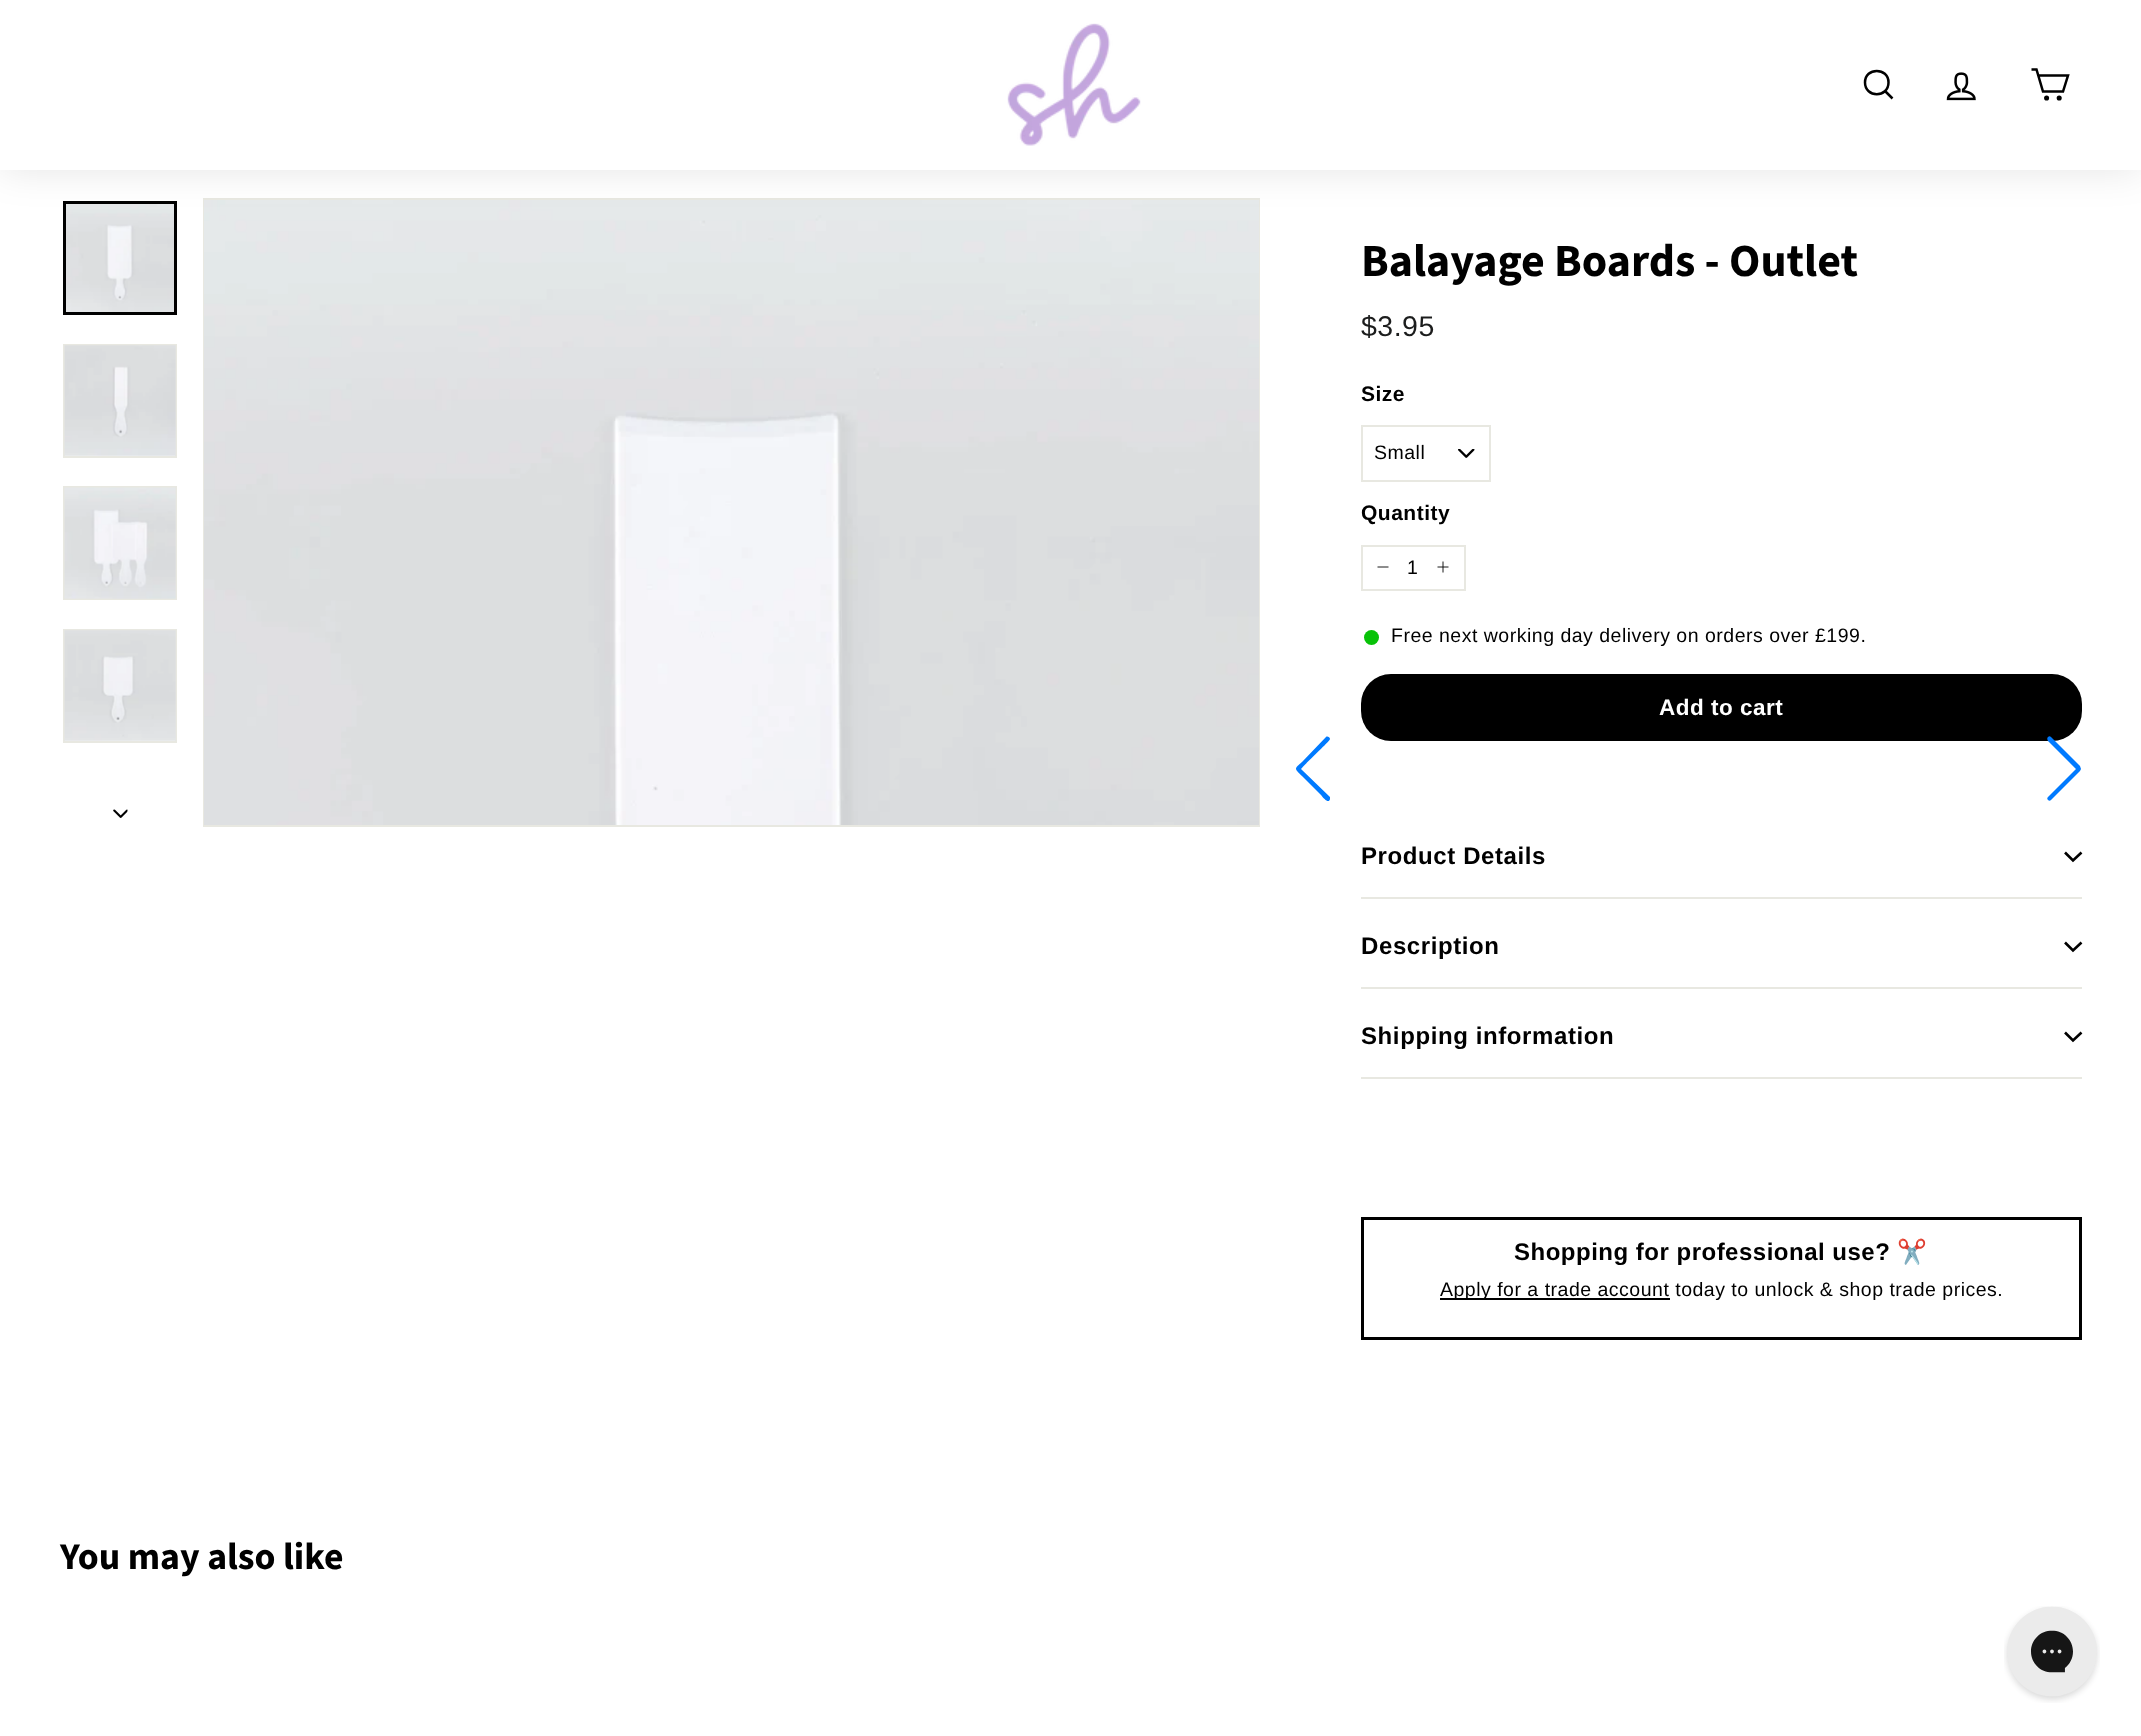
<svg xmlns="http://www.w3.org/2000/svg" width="2141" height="1736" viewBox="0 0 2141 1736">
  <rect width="100%" height="100%" fill="#fff"/>
  <image x="66" y="204" width="108" height="108" href="img/3.png"/>
  <path d="M64.5 202.5h111v111H64.5z" fill="none" stroke="#000" stroke-width="3"/>
  <path d="M204 199h1055v627H204z" fill="none" stroke="#e8e8e1" stroke-width="2"/>
  <image x="204" y="200" width="1055" height="625" href="img/8.png"/>
  <path d="M0 0h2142v170H0z" fill="#0000001a" filter="blur(19px)"/>
  <path d="M0 0h2141v170H0z" fill="#fff"/>
  <image x="1007" y="23" width="134" height="123" href="img/1.png"/>
  <path d="M1888.5 82.5C1888.5 98 1865 98 1865 82.5C1865 67 1888.5 67 1888.5 82.5ZM1892.5 98.5L1885 91" fill="none" stroke="#000" stroke-width="2.5"/>
  <image x="1946" y="72" width="30" height="29" href="img/2.png"/>
  <path d="M2038.5 75.5H2068L2063 91.5H2043L2036.5 69.5H2031.5" fill="none" stroke="#000" stroke-width="2.5"/>
  <circle cx="2046.6" cy="98" r="1.3" fill="none" stroke="#000" stroke-width="2.5"/>
  <circle cx="2059.2" cy="98" r="1.3" fill="none" stroke="#000" stroke-width="2.5"/>
  <path d="M64 345h112v112H64z" fill="none" stroke="#e8e8e1" stroke-width="2"/>
  <image x="64" y="345" width="112" height="111" href="img/4.png"/>
  <path d="M64 487h112v112H64z" fill="none" stroke="#e8e8e1" stroke-width="2"/>
  <image x="64" y="487" width="112" height="112" href="img/5.png"/>
  <path d="M64 630h112v112H64z" fill="none" stroke="#e8e8e1" stroke-width="2"/>
  <image x="64" y="630" width="112" height="111" href="img/6.png"/>
  <image x="113" y="809" width="15" height="9" href="img/7.png"/>
  <image x="1458" y="449" width="17" height="9" href="img/9.png"/>
  <path d="M1362 426h128v55H1362z" fill="none" stroke="#e8e8e1" stroke-width="2"/>
  <path d="M1362 546h103v44H1362z" fill="none" stroke="#e8e8e1" stroke-width="2"/>
  <path d="M1388.5 567H1377.5" fill="none" stroke="#000" stroke-width="0.9"/>
  <path d="M1443 561.5V572.5M1448.5 567H1437.5" fill="none" stroke="#000" stroke-width="0.9"/>
  <circle cx="1371.5" cy="637.5" r="7.5" fill="#08c208"/>
  <rect x="1361" y="674" width="721" height="67" rx="30" fill="#000"/>
  <path d="M1326 737C1327 736 1330 737 1330 739C1330 741 1304 765 1301 769L1330 797V799C1329 804 1324 799 1321 795L1302 776C1294 768 1294 769 1302 762Z" fill="#007aff"/>
  <path d="M2048 800C2047 799 2047 798 2048 797L2076 769L2048 741C2047 739 2047 738 2048 737C2049 736 2050 736 2051 737L2080 766L2081 769L2080 771L2051 800C2050 801 2049 801 2048 800Z" fill="#007aff"/>
  <path d="M1361 897h721v2H1361z" fill="#e8e8e1"/>
  <path d="M2065 852.5L2073 860.5L2081.5 852.5" fill="none" stroke="#000" stroke-width="2.6"/>
  <path d="M1361 987h721v2H1361z" fill="#e8e8e1"/>
  <path d="M2065 942.5L2073 950.5L2081.5 942.5" fill="none" stroke="#000" stroke-width="2.6"/>
  <path d="M1361 1077h721v2H1361z" fill="#e8e8e1"/>
  <path d="M2065 1032.5L2073 1040.5L2081.5 1032.5" fill="none" stroke="#000" stroke-width="2.6"/>
  <path d="M1362.5 1218.5h718v120H1362.5z" fill="none" stroke="#000" stroke-width="3"/>
  <path d="M1440 1298h230v2H1440z" fill="#000"/>
  <image x="2004" y="1606" width="96" height="97" href="img/10.png"/>
  <text x="1361" y="276" font-family="Source Sans Pro" font-size="45.9" font-weight="bold" fill="#000">Balayage Boards - Outlet</text>
  <text x="1361" y="336" font-family="Liberation Sans" font-size="28.5" letter-spacing="0.5" fill="#1c1d1d">$3.95</text>
  <text x="1361" y="401" font-family="Liberation Sans" font-size="21" font-weight="bold" letter-spacing="0.5" fill="#000">Size</text>
  <text x="1374" y="459" font-family="Liberation Sans" font-size="19.5" letter-spacing="0.5" fill="#000">Small</text>
  <text x="1361" y="520" font-family="Liberation Sans" font-size="21" font-weight="bold" letter-spacing="0.5" fill="#000">Quantity</text>
  <g font-family="Liberation Sans" font-size="19.5" letter-spacing="0.5" fill="#000">
    <text x="1407" y="574">1</text>
    <text x="1391" y="642">Free next working day delivery on orders over £199.</text>
  </g>
  <text x="1659" y="715" font-family="Liberation Sans" font-size="22.5" font-weight="bold" letter-spacing="0.5" fill="#fff">Add to cart</text>
  <g font-family="Liberation Sans" font-size="24" font-weight="bold" letter-spacing="0.6" fill="#000">
    <text x="1361" y="864">Product Details</text>
    <text x="1361" y="954">Description</text>
    <text x="1361" y="1044">Shipping information</text>
  </g>
  <text x="1514" y="1260" font-family="Liberation Sans" font-size="24" font-weight="bold" letter-spacing="0.5" fill="#000">Shopping for professional use?</text>
  <text x="1897" y="1260" font-family="Noto Color Emoji" font-size="24" font-weight="bold" letter-spacing="0.5" fill="#000">✂️</text>
  <text x="1440" y="1296" font-family="Liberation Sans" font-size="19.5" letter-spacing="0.5" fill="#000">Apply for a trade account today to unlock &amp; shop trade prices.</text>
  <text x="60" y="1569" font-family="Source Sans Pro" font-size="37.75" font-weight="bold" fill="#000">You may also like</text>
</svg>
